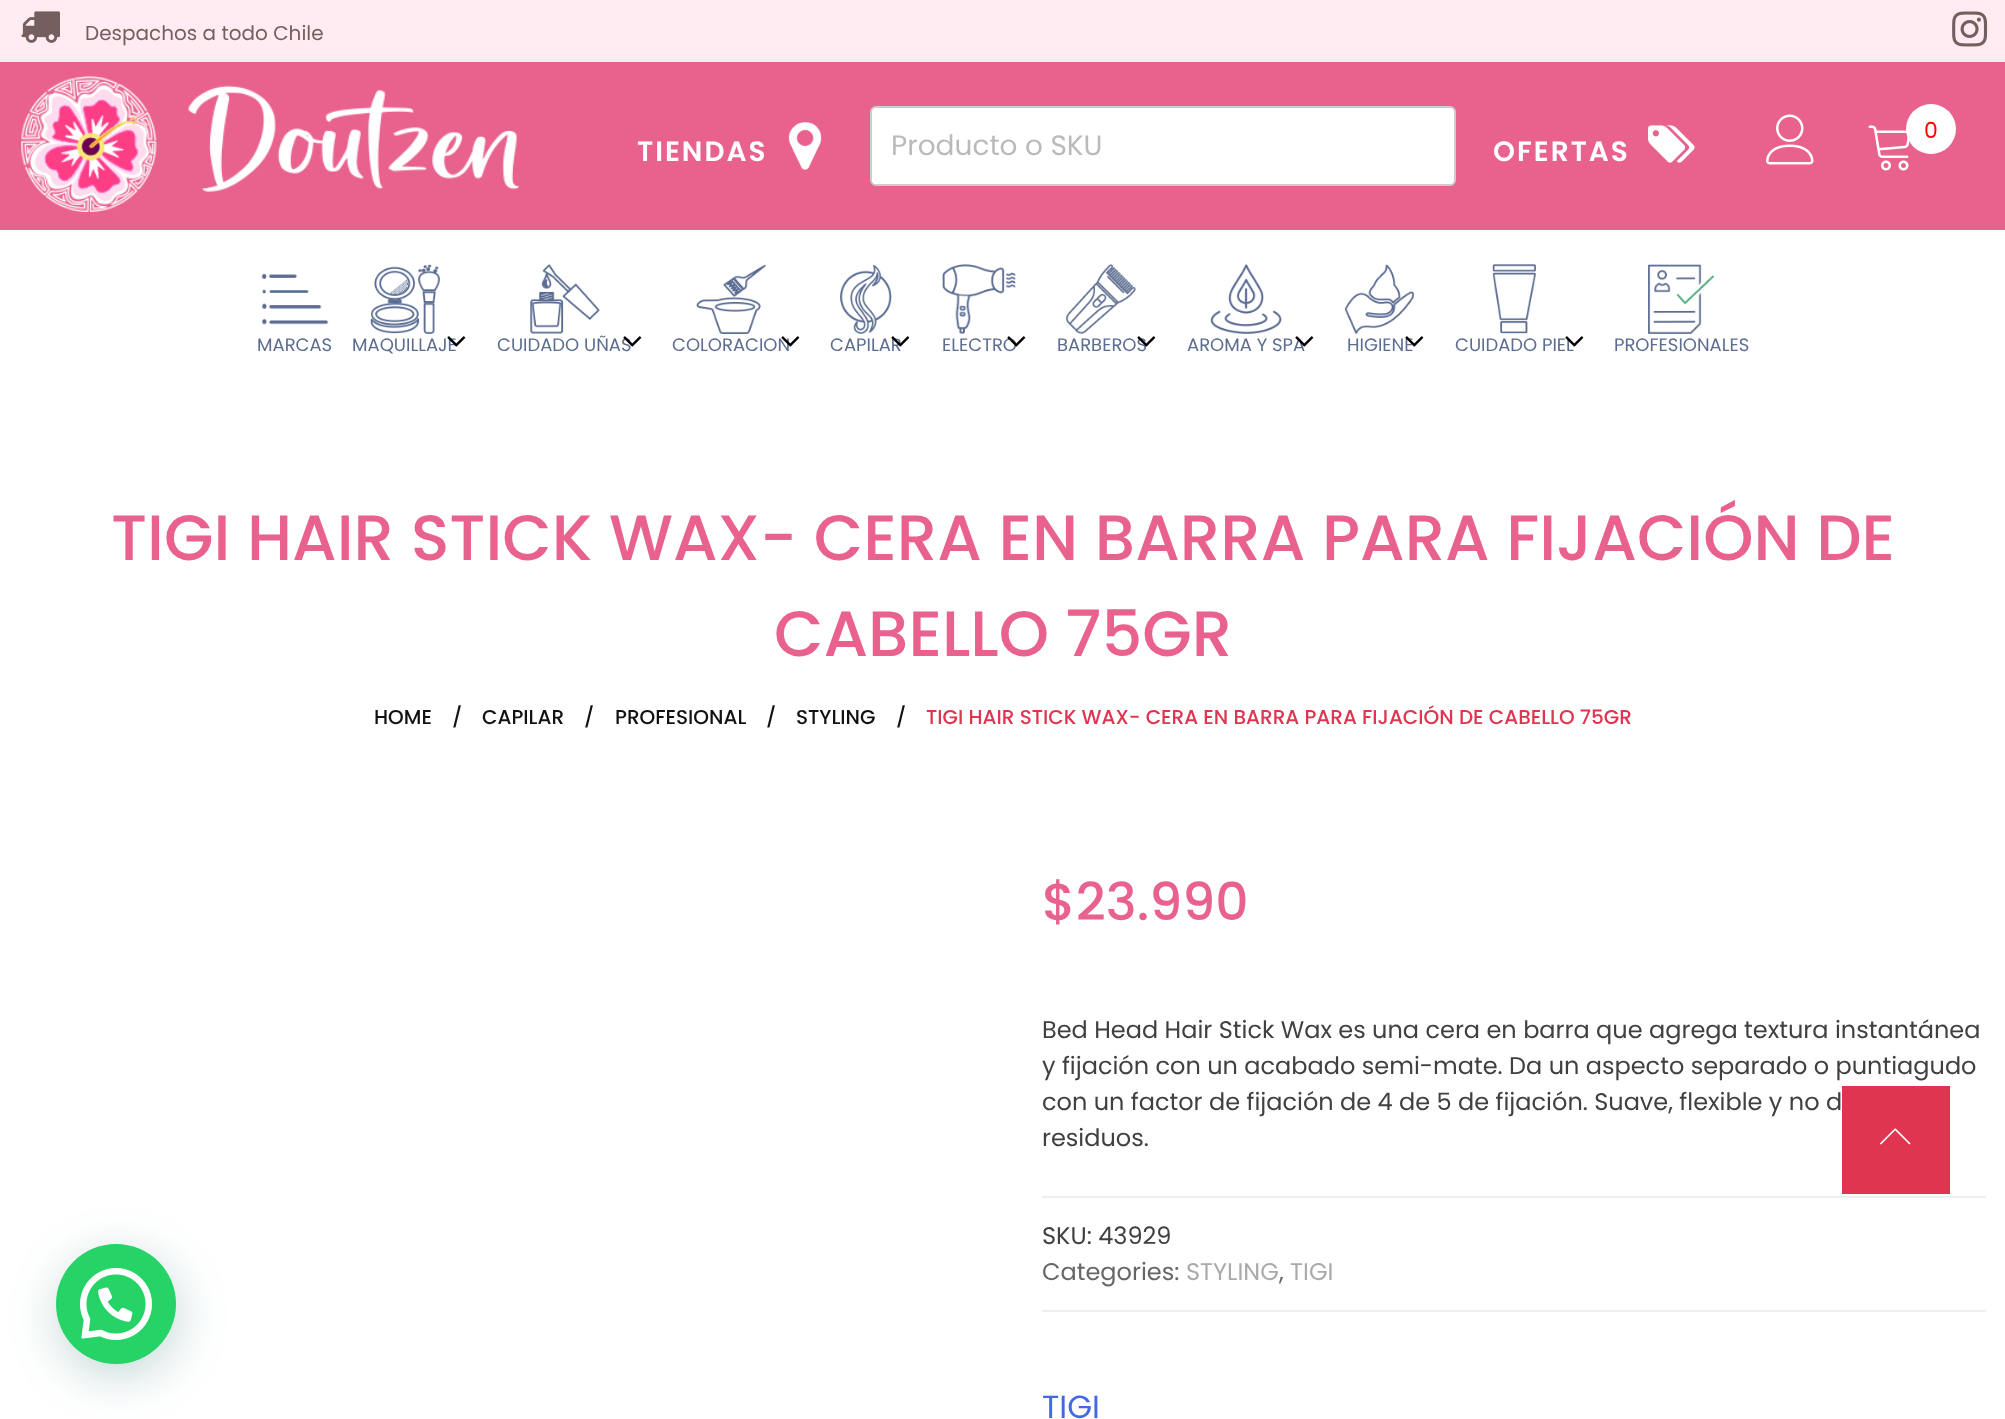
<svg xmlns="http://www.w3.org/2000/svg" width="2005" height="1419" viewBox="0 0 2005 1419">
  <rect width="100%" height="100%" fill="#fff"/>
  <path d="M0 62h2005v168H0z" fill="#e9618d"/>
  <path d="M0 0h2005v60H0z" fill="#ffebf1"/>
  <path d="M0 60h2005v2H0z" fill="#eee"/>
  <image x="21" y="11" width="39" height="32" href="img/1.png"/>
  <image x="1952" y="11" width="36" height="36" href="img/2.png"/>
  <image x="21" y="76" width="498" height="136" href="img/3.png"/>
  <image x="1766" y="114" width="48" height="51" href="img/4.png"/>
  <image x="1868" y="125" width="42" height="46" href="img/5.png"/>
  <circle cx="1931" cy="129" r="25" fill="#fff"/>
  <image x="788" y="122" width="34" height="48" href="img/6.png"/>
  <rect x="871" y="107" width="584" height="78" rx="5" fill="#fff" stroke="#ccc" stroke-width="2"/>
  <image x="1648" y="125" width="47" height="38" href="img/7.png"/>
  <image x="261" y="273" width="68" height="52" href="img/8.png"/>
  <image x="370" y="264" width="70" height="70" href="img/9.png"/>
  <image x="530" y="264" width="70" height="70" href="img/11.png"/>
  <image x="696" y="264" width="70" height="70" href="img/13.png"/>
  <image x="840" y="264" width="52" height="70" href="img/16.png"/>
  <image x="942" y="264" width="74" height="70" href="img/17.png"/>
  <image x="1066" y="264" width="70" height="70" href="img/19.png"/>
  <image x="1210" y="264" width="72" height="70" href="img/22.png"/>
  <image x="1344" y="264" width="70" height="70" href="img/23.png"/>
  <image x="1492" y="264" width="44" height="70" href="img/25.png"/>
  <image x="1648" y="264" width="66" height="70" href="img/27.png"/>
  <path d="M1042 1196h944v2H1042z" fill="#eee"/>
  <path d="M1042 1310h944v2H1042z" fill="#eee"/>
  <path d="M1842 1086h108v108H1842z" fill="#df3551"/>
  <image x="1880" y="1128" width="31" height="17" href="img/28.png"/>
  <rect x="58" y="1256" width="120" height="120" rx="60" fill="#075e543d" filter="blur(24px)"/>
  <circle cx="116" cy="1304" r="60" fill="#25d366"/>
  <image x="80" y="1268" width="72" height="72" href="img/29.png"/>
  <text x="85" y="40" font-family="Poppins" font-size="20" fill="#755e5e">Despachos a todo Chile</text>
  <text x="1924" y="138" font-family="Poppins" font-size="22" fill="#f00">0</text>
  <text x="637" y="161" font-family="Poppins" font-size="28" font-weight="600" letter-spacing="2" fill="#fff">TIENDAS</text>
  <text x="891" y="155" font-family="Poppins" font-size="28" fill="#bababa">Producto o SKU</text>
  <text x="1493" y="161" font-family="Poppins" font-size="28" font-weight="600" letter-spacing="2" fill="#fff">OFERTAS</text>
  <g font-family="Poppins" font-size="18" fill="#5c6d90">
    <text x="257" y="351">MARCAS</text>
    <text x="352" y="351">MAQUILLAJE</text>
  </g>
  <image x="447" y="336" width="19" height="11" href="img/10.png"/>
  <text x="497" y="351" font-family="Poppins" font-size="18" fill="#5c6d90">CUIDADO UÑAS</text>
  <image x="623" y="336" width="19" height="11" href="img/12.png"/>
  <text x="672" y="351" font-family="Poppins" font-size="18" fill="#5c6d90">COLORACION</text>
  <image x="781" y="336" width="19" height="11" href="img/14.png"/>
  <text x="830" y="351" font-family="Poppins" font-size="18" fill="#5c6d90">CAPILAR</text>
  <image x="891" y="336" width="19" height="11" href="img/15.png"/>
  <text x="942" y="351" font-family="Poppins" font-size="18" fill="#5c6d90">ELECTRO</text>
  <image x="1007" y="336" width="19" height="11" href="img/18.png"/>
  <text x="1057" y="351" font-family="Poppins" font-size="18" fill="#5c6d90">BARBEROS</text>
  <image x="1137" y="336" width="19" height="11" href="img/20.png"/>
  <text x="1187" y="351" font-family="Poppins" font-size="18" fill="#5c6d90">AROMA Y SPA</text>
  <image x="1295" y="336" width="19" height="11" href="img/21.png"/>
  <text x="1347" y="351" font-family="Poppins" font-size="18" fill="#5c6d90">HIGIENE</text>
  <image x="1405" y="336" width="19" height="11" href="img/24.png"/>
  <text x="1455" y="351" font-family="Poppins" font-size="18" fill="#5c6d90">CUIDADO PIEL</text>
  <image x="1565" y="336" width="19" height="11" href="img/26.png"/>
  <text x="1614" y="351" font-family="Poppins" font-size="18" fill="#5c6d90">PROFESIONALES</text>
  <g font-family="Poppins" font-size="64" font-weight="500" fill="#e9618d">
    <text x="111" y="560">TIGI HAIR STICK WAX- CERA EN BARRA PARA FIJACIÓN DE</text>
    <text x="774" y="656">CABELLO 75GR</text>
  </g>
  <g font-family="Poppins" font-size="20" font-weight="500" fill="#121212">
    <text x="374" y="724">HOME</text>
    <text x="452" y="724">/</text>
    <text x="482" y="724">CAPILAR</text>
    <text x="584" y="724">/</text>
    <text x="615" y="724">PROFESIONAL</text>
    <text x="766" y="724">/</text>
    <text x="796" y="724">STYLING</text>
    <text x="896" y="724">/</text>
  </g>
  <text x="926" y="724" font-family="Poppins" font-size="20" font-weight="500" fill="#df3550">TIGI HAIR STICK WAX- CERA EN BARRA PARA FIJACIÓN DE CABELLO 75GR</text>
  <text x="1042" y="920" font-family="Poppins" font-size="52" font-weight="500" fill="#e9618d">$23.990</text>
  <g font-family="Poppins" font-size="24" fill="#404040">
    <text x="1042" y="1038">Bed Head Hair Stick Wax es una cera en barra que agrega textura instantánea</text>
    <text x="1042" y="1074">y fijación con un acabado semi-mate. Da un aspecto separado o puntiagudo</text>
    <text x="1042" y="1110">con un factor de fijación de 4 de 5 de fijación. Suave, flexible y no d</text>
    <text x="1042" y="1146">residuos.</text>
    <text x="1042" y="1244">SKU: 43929</text>
  </g>
  <text x="1042" y="1280" font-family="Poppins" font-size="24" fill="#666">Categories:</text>
  <text x="1186" y="1280" font-family="Poppins" font-size="24" fill="#aaa">STYLING</text>
  <text x="1279" y="1280" font-family="Poppins" font-size="24" fill="#666">,</text>
  <text x="1290" y="1280" font-family="Poppins" font-size="24" fill="#aaa">TIGI</text>
  <text x="1042" y="1418" font-family="Poppins" font-size="32" fill="#4169e1">TIGI</text>
</svg>
